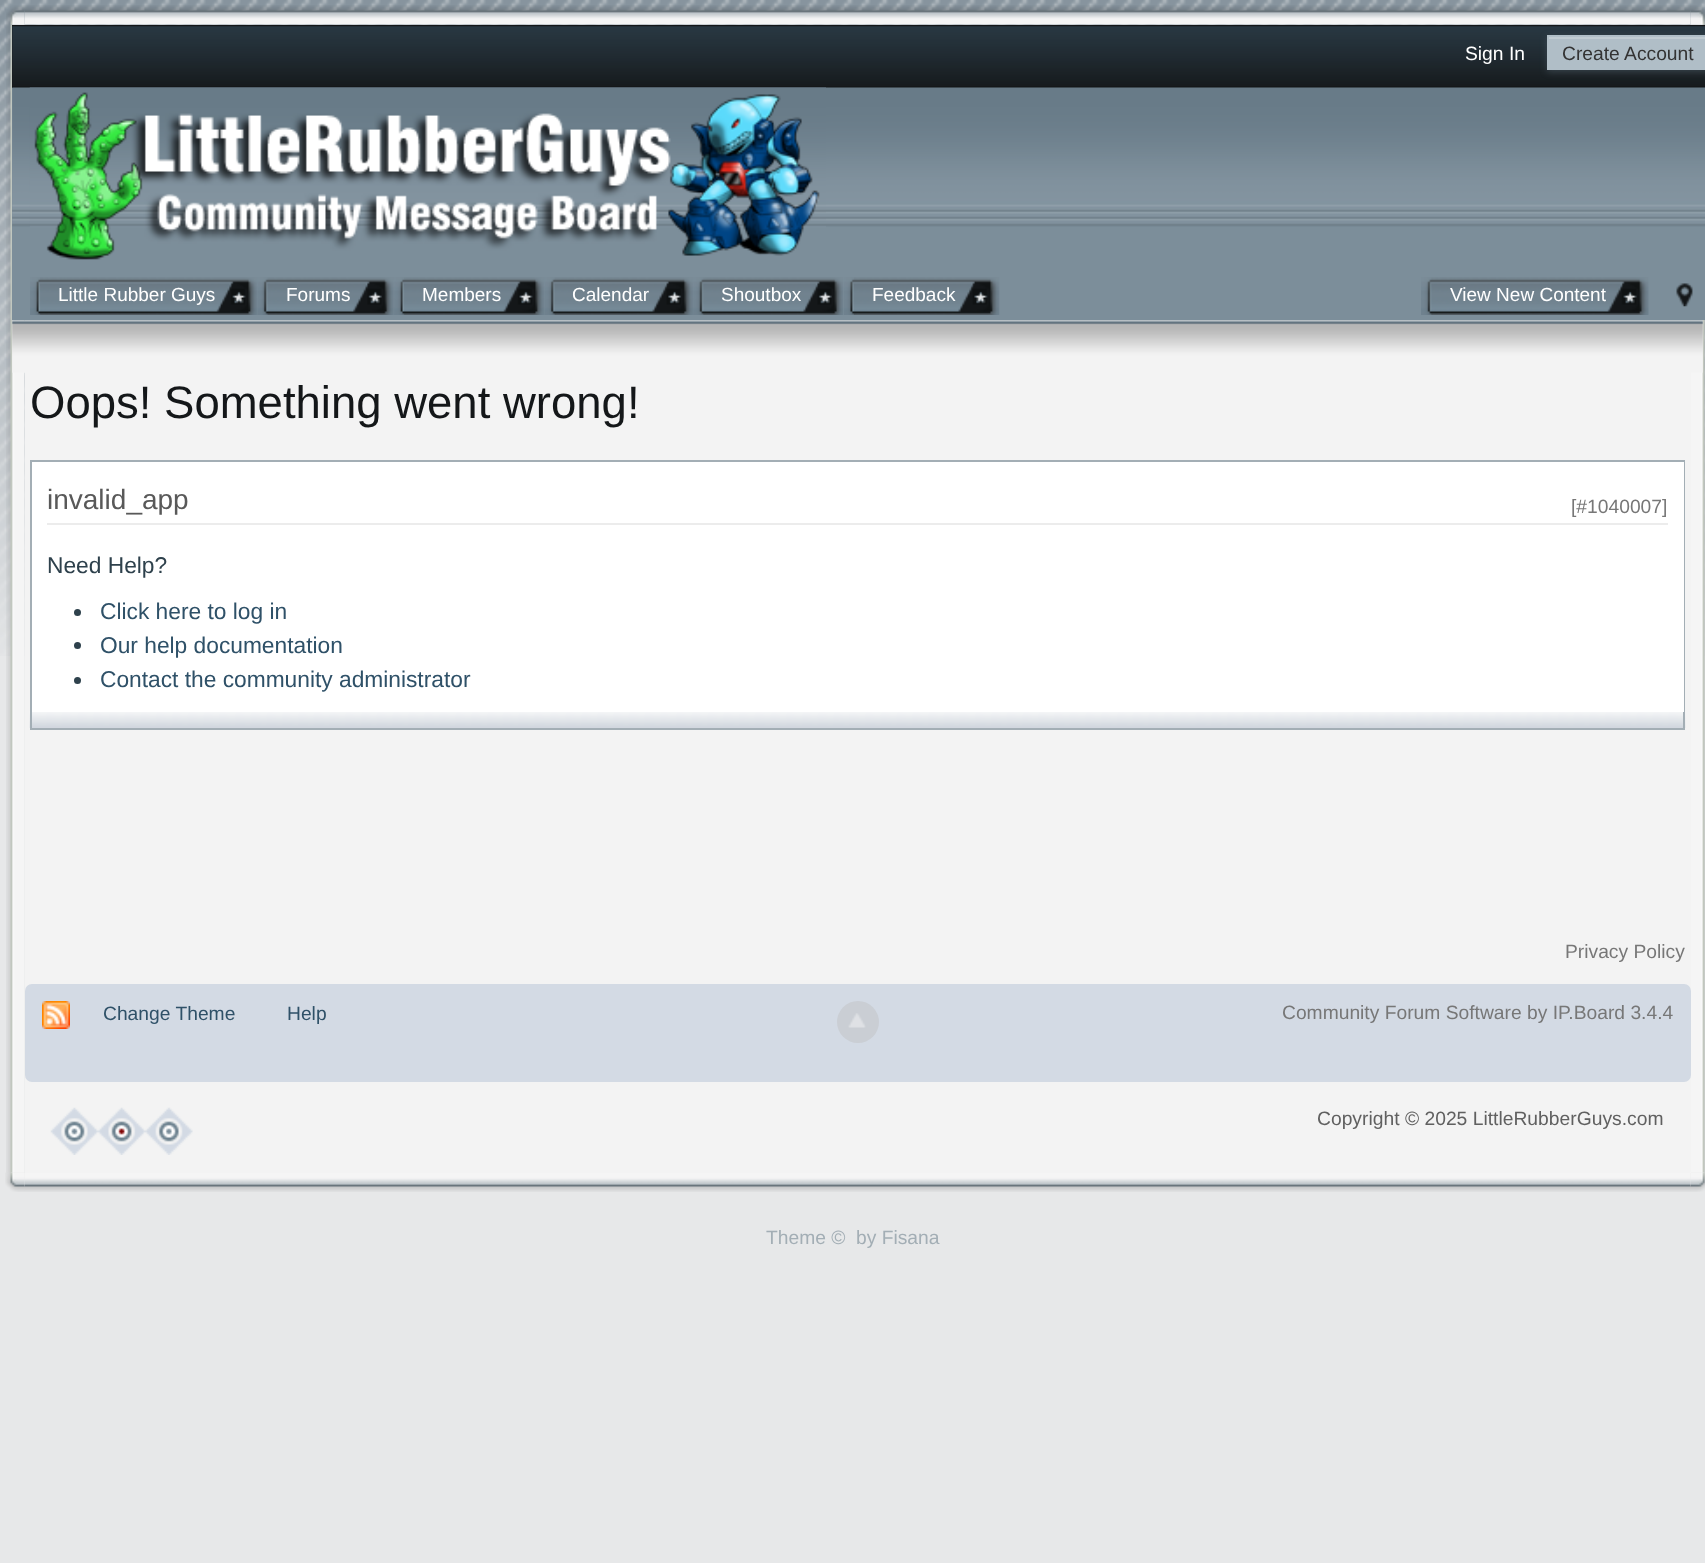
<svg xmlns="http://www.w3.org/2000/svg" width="1705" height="1563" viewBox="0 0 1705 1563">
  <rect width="100%" height="100%" fill="#e7e8e9"/>
  <image x="0" y="0" width="1705" height="656" href="img/1.png"/>
  <image x="6" y="5" width="19" height="20" href="img/2.png"/>
  <image x="1690" y="5" width="15" height="20" href="img/3.png"/>
  <image x="24" y="5" width="1667" height="20" href="img/4.png"/>
  <image x="6" y="24" width="19" height="1149" href="img/5.png"/>
  <image x="1690" y="24" width="15" height="1149" href="img/6.png"/>
  <path d="M25 320h1666v853H25z" fill="#f3f3f3"/>
  <path d="M12 25h1693v63H12z" fill="#141719"/>
  <image x="12" y="26" width="1693" height="60" href="img/7.png"/>
  <path d="M1547 37h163v35H1547z" fill="#5e717e66" filter="blur(3.5px)"/>
  <path d="M1547 35h158v35H1547z" fill="#b0bec7"/>
  <path d="M1549 37h156v2H1549z" fill="#c0cbd2"/>
  <path d="M12 88h1693v232H12z" fill="#7c8e9a"/>
  <image x="12" y="87" width="1693" height="140" href="img/8.png"/>
  <image x="29" y="87" width="797" height="173" href="img/9.png"/>
  <image x="30" y="277" width="11" height="38" href="img/10.png"/>
  <image x="40" y="277" width="218" height="38" href="img/11.png"/>
  <image x="257" y="277" width="11" height="38" href="img/12.png"/>
  <image x="267" y="277" width="127" height="38" href="img/13.png"/>
  <image x="394" y="277" width="11" height="38" href="img/10.png"/>
  <image x="404" y="277" width="141" height="38" href="img/14.png"/>
  <image x="544" y="277" width="11" height="38" href="img/15.png"/>
  <image x="554" y="277" width="139" height="38" href="img/16.png"/>
  <image x="693" y="277" width="11" height="38" href="img/17.png"/>
  <image x="703" y="277" width="141" height="38" href="img/18.png"/>
  <image x="844" y="277" width="10" height="38" href="img/19.png"/>
  <image x="854" y="277" width="146" height="38" href="img/20.png"/>
  <image x="1421" y="277" width="11" height="38" href="img/21.png"/>
  <image x="1431" y="277" width="218" height="38" href="img/22.png"/>
  <image x="1676" y="283" width="17" height="24" href="img/23.png"/>
  <image x="12" y="320" width="1691" height="53" href="img/24.png"/>
  <image x="29" y="710" width="1657" height="18" href="img/25.png"/>
  <path d="M31 461h1653v268H31z" fill="none" stroke="#a3aeb5" stroke-width="2"/>
  <path d="M32 462h1652v250H32z" fill="#fff"/>
  <path d="M47 523h1621v2H47z" fill="#ececec"/>
  <circle cx="77.5" cy="612.5" r="3.5" fill="#2e414c"/>
  <circle cx="77.5" cy="645.5" r="3.5" fill="#2e414c"/>
  <circle cx="77.5" cy="680.5" r="3.5" fill="#2e414c"/>
  <rect x="25" y="984" width="1666" height="98" rx="7" fill="#d3dae4"/>
  <image x="42" y="1001" width="28" height="28" href="img/26.png"/>
  <circle cx="858" cy="1022" r="21" fill="#caced4"/>
  <image x="848" y="1013" width="18" height="15" href="img/27.png"/>
  <image x="50" y="1107" width="143" height="48" href="img/28.png"/>
  <image x="5" y="1172" width="20" height="20" href="img/29.png"/>
  <image x="1690" y="1172" width="15" height="20" href="img/30.png"/>
  <image x="24" y="1173" width="1667" height="19" href="img/31.png"/>
  <text x="1465" y="60" font-family="Liberation Sans" font-size="19.25" fill="#fff">Sign In</text>
  <text x="1562" y="60" font-family="Liberation Sans" font-size="19.25" fill="#333">Create Account</text>
  <g font-family="Liberation Sans" font-size="19" fill="#fff">
    <text x="58" y="301">Little Rubber Guys</text>
    <text x="286" y="301">Forums</text>
    <text x="422" y="301">Members</text>
    <text x="572" y="301">Calendar</text>
    <text x="721" y="301">Shoutbox</text>
    <text x="872" y="301">Feedback</text>
    <text x="1450" y="301">View New Content</text>
  </g>
  <text x="30" y="418" font-family="Liberation Sans" font-size="45.5" fill="#141719">Oops! Something went wrong!</text>
  <text x="47" y="509" font-family="Liberation Sans" font-size="28" fill="#595959">invalid_app</text>
  <text x="1571" y="513" font-family="Liberation Sans" font-size="19.25" fill="#777">[#1040007]</text>
  <text x="47" y="573" font-family="Liberation Sans" font-size="22.75" fill="#2e414c">Need Help?</text>
  <g font-family="Liberation Sans" font-size="22.75" fill="#2f5168">
    <text x="100" y="619">Click here to log in</text>
    <text x="100" y="653">Our help documentation</text>
    <text x="100" y="687">Contact the community administrator</text>
  </g>
  <text x="1565" y="958" font-family="Liberation Sans" font-size="19.25" fill="#777">Privacy Policy</text>
  <g font-family="Liberation Sans" font-size="19.25" fill="#2f5168">
    <text x="103" y="1020">Change Theme</text>
    <text x="287" y="1020">Help</text>
  </g>
  <text x="1282" y="1019" font-family="Liberation Sans" font-size="19.25" fill="#777">Community Forum Software by IP.Board 3.4.4</text>
  <text x="1317" y="1125" font-family="Liberation Sans" font-size="19.3" fill="#606060">Copyright © 2025 LittleRubberGuys.com</text>
  <g font-family="Liberation Sans" font-size="19.25" fill="#a3aeb5">
    <text x="766" y="1244">Theme ©</text>
    <text x="856" y="1244">by Fisana</text>
  </g>
</svg>
